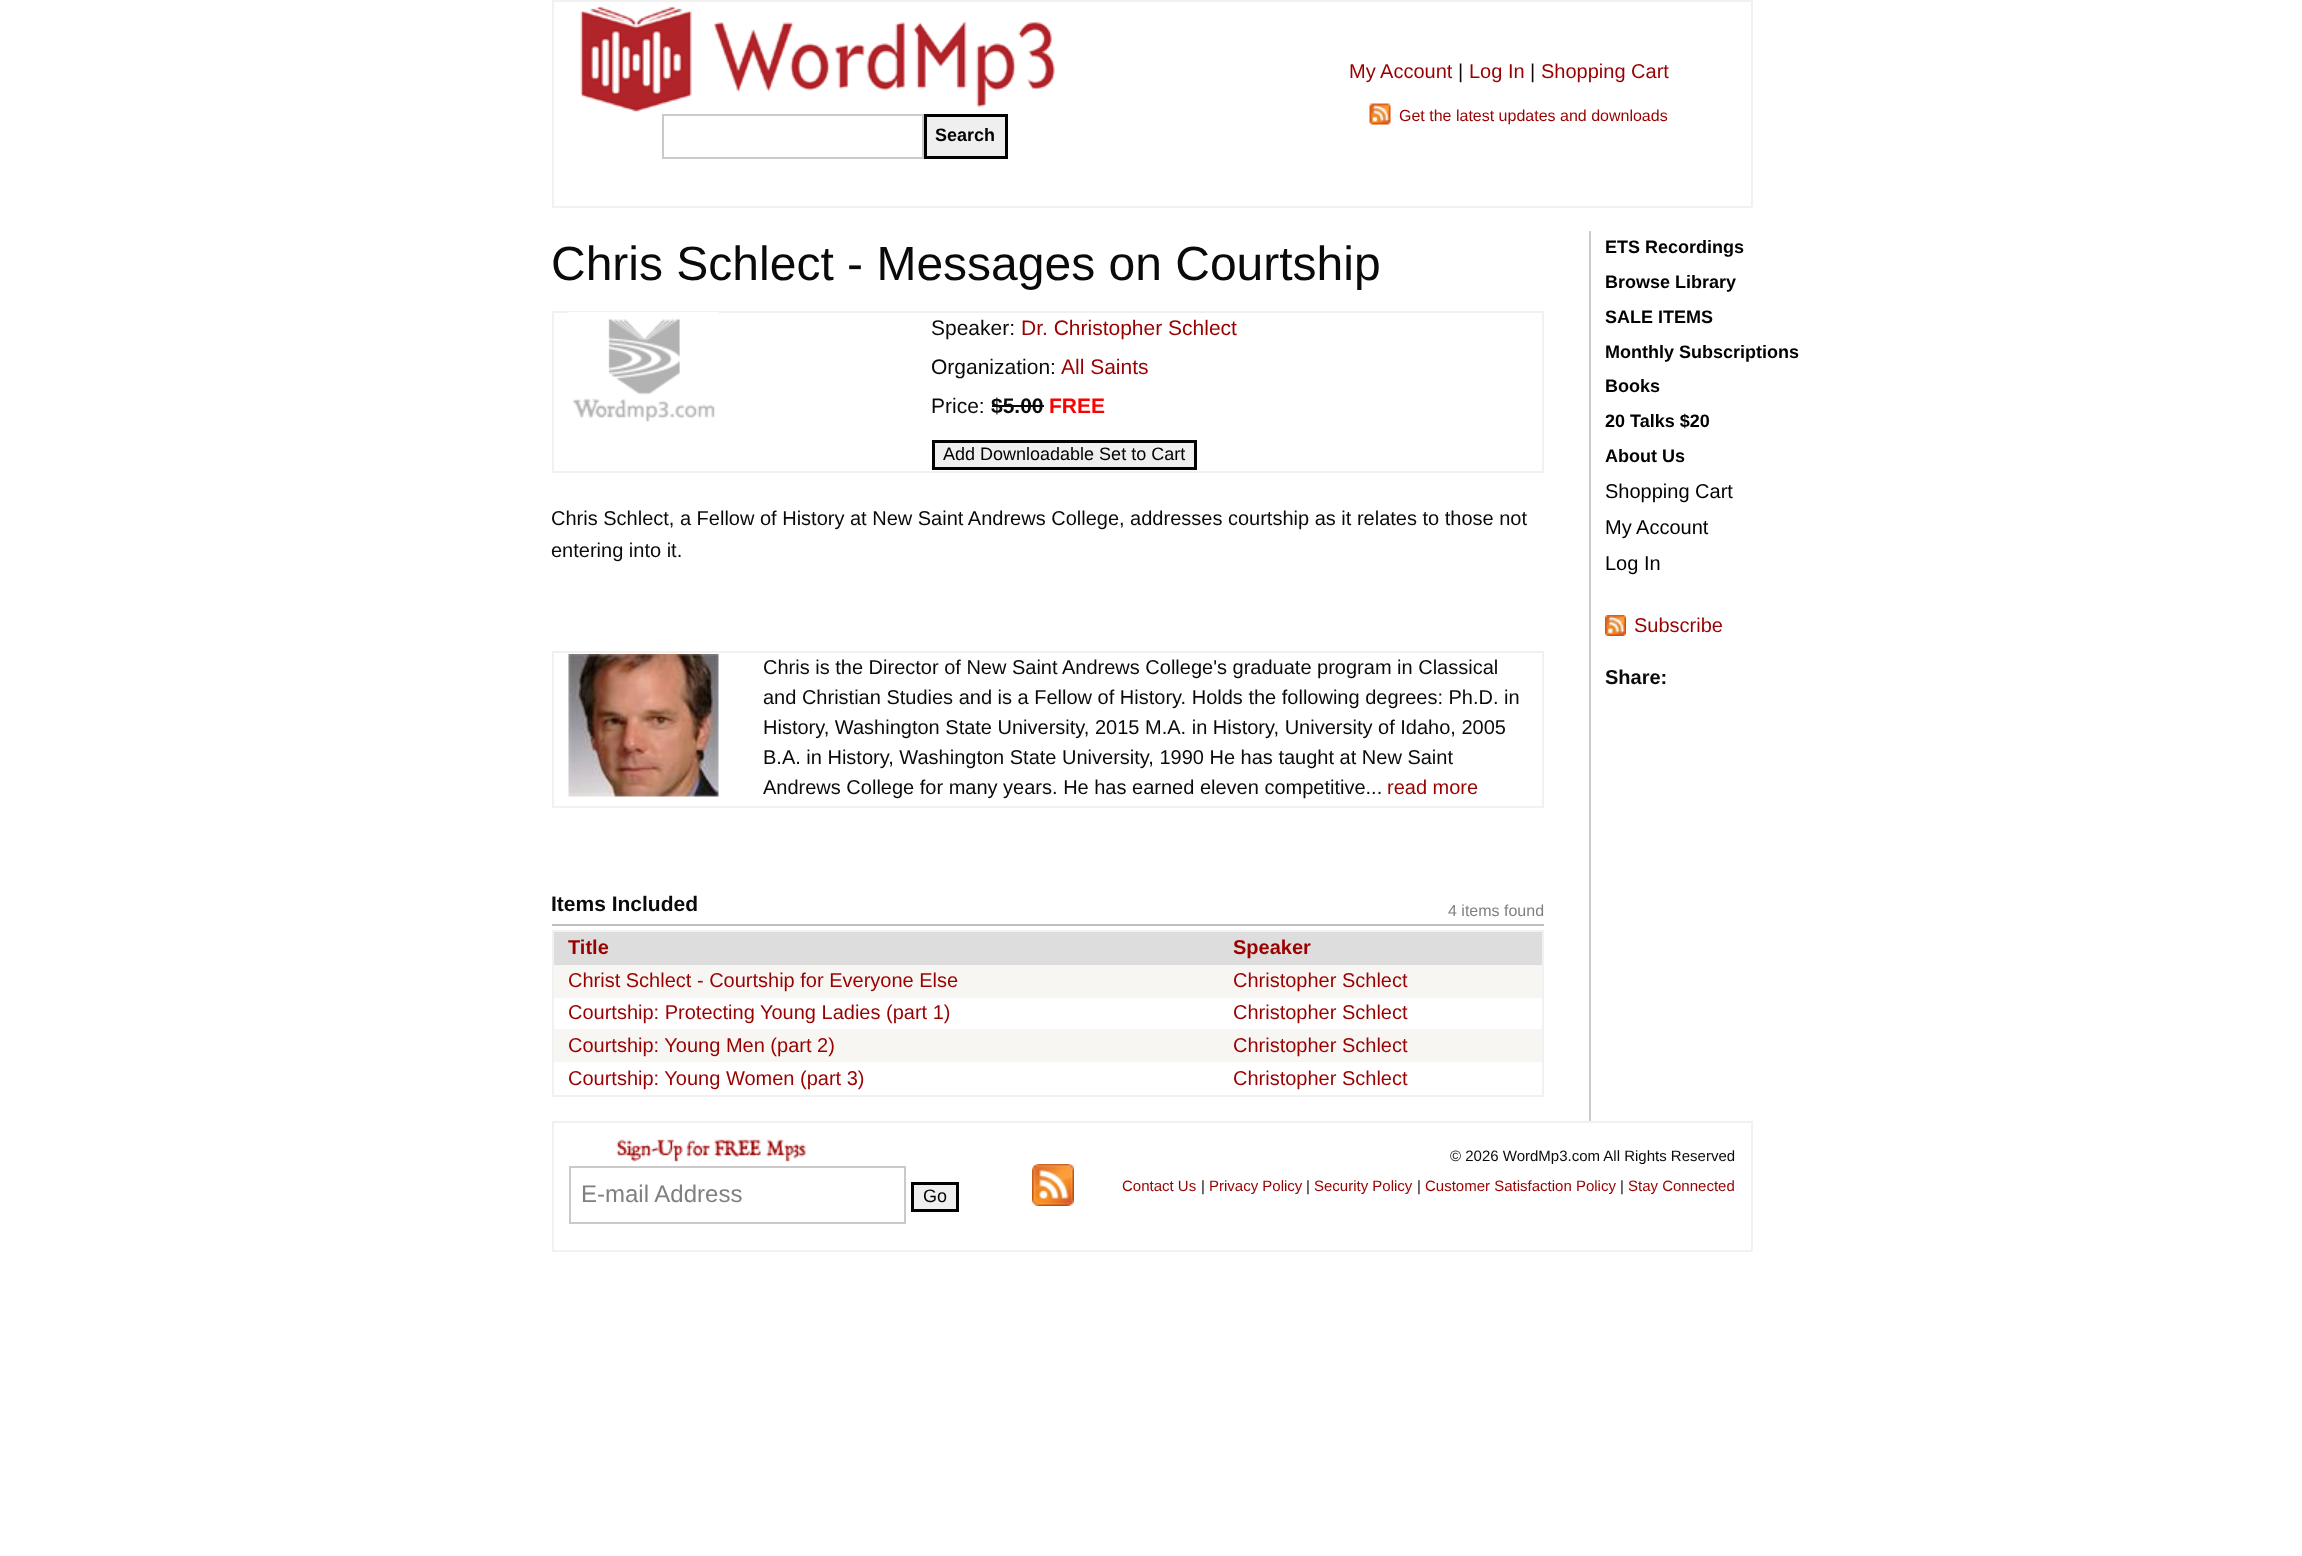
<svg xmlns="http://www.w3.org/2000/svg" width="2302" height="1556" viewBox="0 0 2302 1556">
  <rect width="100%" height="100%" fill="#fff"/>
  <path d="M552 0h1200v2H552z" fill="#f1f1f1"/>
  <path d="M1751 0h2v207H1751z" fill="#f1f1f1"/>
  <path d="M552 206h1200v2H552z" fill="#f1f1f1"/>
  <path d="M552 0h2v207H552z" fill="#f1f1f1"/>
  <image x="1369" y="103" width="22" height="22" href="img/1.png"/>
  <image x="580" y="6" width="475" height="106" href="img/2.png"/>
  <path d="M663 115h260v43H663z" fill="none" stroke="#cacaca" stroke-width="2"/>
  <path d="M925.5 115.5h81v42H925.5z" fill="#efefef" stroke="#000" stroke-width="3"/>
  <path d="M552 311h992v2H552z" fill="#f1f1f1"/>
  <path d="M1542 311h2v162H1542z" fill="#f1f1f1"/>
  <path d="M552 471h992v2H552z" fill="#f1f1f1"/>
  <path d="M552 311h2v162H552z" fill="#f1f1f1"/>
  <image x="568" y="312" width="151" height="110" href="img/3.png"/>
  <path d="M992 405h52v2H992z" fill="#0a0a0a"/>
  <path d="M933.5 441.5h262v27H933.5z" fill="#efefef" stroke="#000" stroke-width="3"/>
  <path d="M552 651h992v2H552z" fill="#f1f1f1"/>
  <path d="M1542 651h2v156H1542z" fill="#f1f1f1"/>
  <path d="M552 806h992v2H552z" fill="#f1f1f1"/>
  <path d="M552 651h2v156H552z" fill="#f1f1f1"/>
  <image x="568" y="654" width="151" height="143" href="img/4.png"/>
  <path d="M552 924h992v2H552z" fill="#c0c0c0"/>
  <path d="M552 930h992v2H552z" fill="#f1f1f1"/>
  <path d="M1542 930h2v167H1542z" fill="#f1f1f1"/>
  <path d="M552 1095h992v2H552z" fill="#f1f1f1"/>
  <path d="M552 930h2v167H552z" fill="#f1f1f1"/>
  <path d="M554 932h988v33H554z" fill="#ddd"/>
  <path d="M554 965h988v33H554z" fill="#f7f6f3"/>
  <path d="M554 1029h988v33H554z" fill="#f7f6f3"/>
  <path d="M1589 231h2v890H1589z" fill="#ccc"/>
  <image x="1605" y="615" width="21" height="21" href="img/5.png"/>
  <path d="M552 1121h1200v2H552z" fill="#f1f1f1"/>
  <path d="M1751 1121h2v130H1751z" fill="#f1f1f1"/>
  <path d="M552 1250h1200v2H552z" fill="#f1f1f1"/>
  <path d="M552 1121h2v130H552z" fill="#f1f1f1"/>
  <image x="616" y="1139" width="190" height="23" href="img/6.png"/>
  <path d="M570 1167h335v56H570z" fill="none" stroke="#cacaca" stroke-width="2"/>
  <path d="M912.5 1183.5h45v27H912.5z" fill="#efefef" stroke="#000" stroke-width="3"/>
  <image x="1032" y="1164" width="42" height="42" href="img/7.png"/>
  <text x="1349" y="78" font-family="Liberation Sans" font-size="20" fill="#900">My Account</text>
  <text x="1458" y="78" font-family="Liberation Sans" font-size="20" fill="#0a0a0a">|</text>
  <text x="1469" y="78" font-family="Liberation Sans" font-size="20" fill="#900">Log In</text>
  <text x="1530" y="78" font-family="Liberation Sans" font-size="20" fill="#0a0a0a">|</text>
  <text x="1541" y="78" font-family="Liberation Sans" font-size="20" fill="#900">Shopping Cart</text>
  <text x="1399" y="121" font-family="Liberation Sans" font-size="16" fill="#900">Get the latest updates and downloads</text>
  <text x="935" y="141" font-family="Liberation Sans" font-size="18" font-weight="bold" fill="#000">Search</text>
  <text x="551" y="280" font-family="Liberation Sans" font-size="48" fill="#0a0a0a">Chris Schlect - Messages on Courtship</text>
  <text x="931" y="335" font-family="Liberation Sans" font-size="21" fill="#0a0a0a">Speaker:</text>
  <text x="1021" y="335" font-family="Liberation Sans" font-size="21" fill="#900">Dr. Christopher Schlect</text>
  <text x="931" y="374" font-family="Liberation Sans" font-size="21" fill="#0a0a0a">Organization:</text>
  <text x="1061" y="374" font-family="Liberation Sans" font-size="21" fill="#900">All Saints</text>
  <text x="931" y="413" font-family="Liberation Sans" font-size="21" fill="#0a0a0a">Price:</text>
  <text x="991" y="413" font-family="Liberation Sans" font-size="21" font-weight="bold" fill="#0a0a0a">$5.00</text>
  <text x="1049" y="413" font-family="Liberation Sans" font-size="21" font-weight="bold" fill="#f00">FREE</text>
  <text x="943" y="460" font-family="Liberation Sans" font-size="18" fill="#000">Add Downloadable Set to Cart</text>
  <g font-family="Liberation Sans" font-size="20" fill="#0a0a0a">
    <text x="551" y="525">Chris Schlect, a Fellow of History at New Saint Andrews College, addresses courtship as it relates to those not</text>
    <text x="551" y="557">entering into it.</text>
    <text x="763" y="674">Chris is the Director of New Saint Andrews College's graduate program in Classical</text>
    <text x="763" y="704">and Christian Studies and is a Fellow of History. Holds the following degrees: Ph.D. in</text>
    <text x="763" y="734">History, Washington State University, 2015 M.A. in History, University of Idaho, 2005</text>
    <text x="763" y="764">B.A. in History, Washington State University, 1990 He has taught at New Saint</text>
    <text x="763" y="794">Andrews College for many years. He has earned eleven competitive...</text>
  </g>
  <text x="1387" y="794" font-family="Liberation Sans" font-size="20" fill="#900">read more</text>
  <text x="551" y="911" font-family="Liberation Sans" font-size="21" font-weight="bold" fill="#0a0a0a">Items Included</text>
  <text x="1448" y="916" font-family="Liberation Sans" font-size="16" fill="#808080">4 items found</text>
  <g font-family="Liberation Sans" font-size="20" font-weight="bold" fill="#900">
    <text x="568" y="954">Title</text>
    <text x="1233" y="954">Speaker</text>
  </g>
  <g font-family="Liberation Sans" font-size="20" fill="#900">
    <text x="568" y="987">Christ Schlect - Courtship for Everyone Else</text>
    <text x="1233" y="987">Christopher Schlect</text>
    <text x="568" y="1019">Courtship: Protecting Young Ladies (part 1)</text>
    <text x="1233" y="1019">Christopher Schlect</text>
    <text x="568" y="1052">Courtship: Young Men (part 2)</text>
    <text x="1233" y="1052">Christopher Schlect</text>
    <text x="568" y="1085">Courtship: Young Women (part 3)</text>
    <text x="1233" y="1085">Christopher Schlect</text>
  </g>
  <g font-family="Liberation Sans" font-size="18" font-weight="bold" fill="#000">
    <text x="1605" y="253">ETS Recordings</text>
    <text x="1605" y="288">Browse Library</text>
    <text x="1605" y="323">SALE ITEMS</text>
    <text x="1605" y="358">Monthly Subscriptions</text>
    <text x="1605" y="392">Books</text>
    <text x="1605" y="427">20 Talks $20</text>
    <text x="1605" y="462">About Us</text>
  </g>
  <g font-family="Liberation Sans" font-size="20" fill="#000">
    <text x="1605" y="498">Shopping Cart</text>
    <text x="1605" y="534">My Account</text>
    <text x="1605" y="570">Log In</text>
  </g>
  <text x="1634" y="632" font-family="Liberation Sans" font-size="20" fill="#900">Subscribe</text>
  <text x="1605" y="684" font-family="Liberation Sans" font-size="20" font-weight="bold" fill="#0a0a0a">Share:</text>
  <text x="581" y="1202" font-family="Liberation Sans" font-size="24" fill="#808080">E-mail Address</text>
  <text x="923" y="1202" font-family="Liberation Sans" font-size="18" fill="#000">Go</text>
  <text x="1450" y="1161" font-family="Liberation Sans" font-size="15" fill="#0a0a0a">© 2026 WordMp3.com All Rights Reserved</text>
  <text x="1122" y="1191" font-family="Liberation Sans" font-size="15" fill="#900">Contact Us</text>
  <text x="1201" y="1191" font-family="Liberation Sans" font-size="15" fill="#0a0a0a">|</text>
  <text x="1209" y="1191" font-family="Liberation Sans" font-size="15" fill="#900">Privacy Policy</text>
  <text x="1306" y="1191" font-family="Liberation Sans" font-size="15" fill="#0a0a0a">|</text>
  <text x="1314" y="1191" font-family="Liberation Sans" font-size="15" fill="#900">Security Policy</text>
  <text x="1417" y="1191" font-family="Liberation Sans" font-size="15" fill="#0a0a0a">|</text>
  <text x="1425" y="1191" font-family="Liberation Sans" font-size="15" fill="#900">Customer Satisfaction Policy</text>
  <text x="1620" y="1191" font-family="Liberation Sans" font-size="15" fill="#0a0a0a">|</text>
  <text x="1628" y="1191" font-family="Liberation Sans" font-size="15" fill="#900">Stay Connected</text>
</svg>
